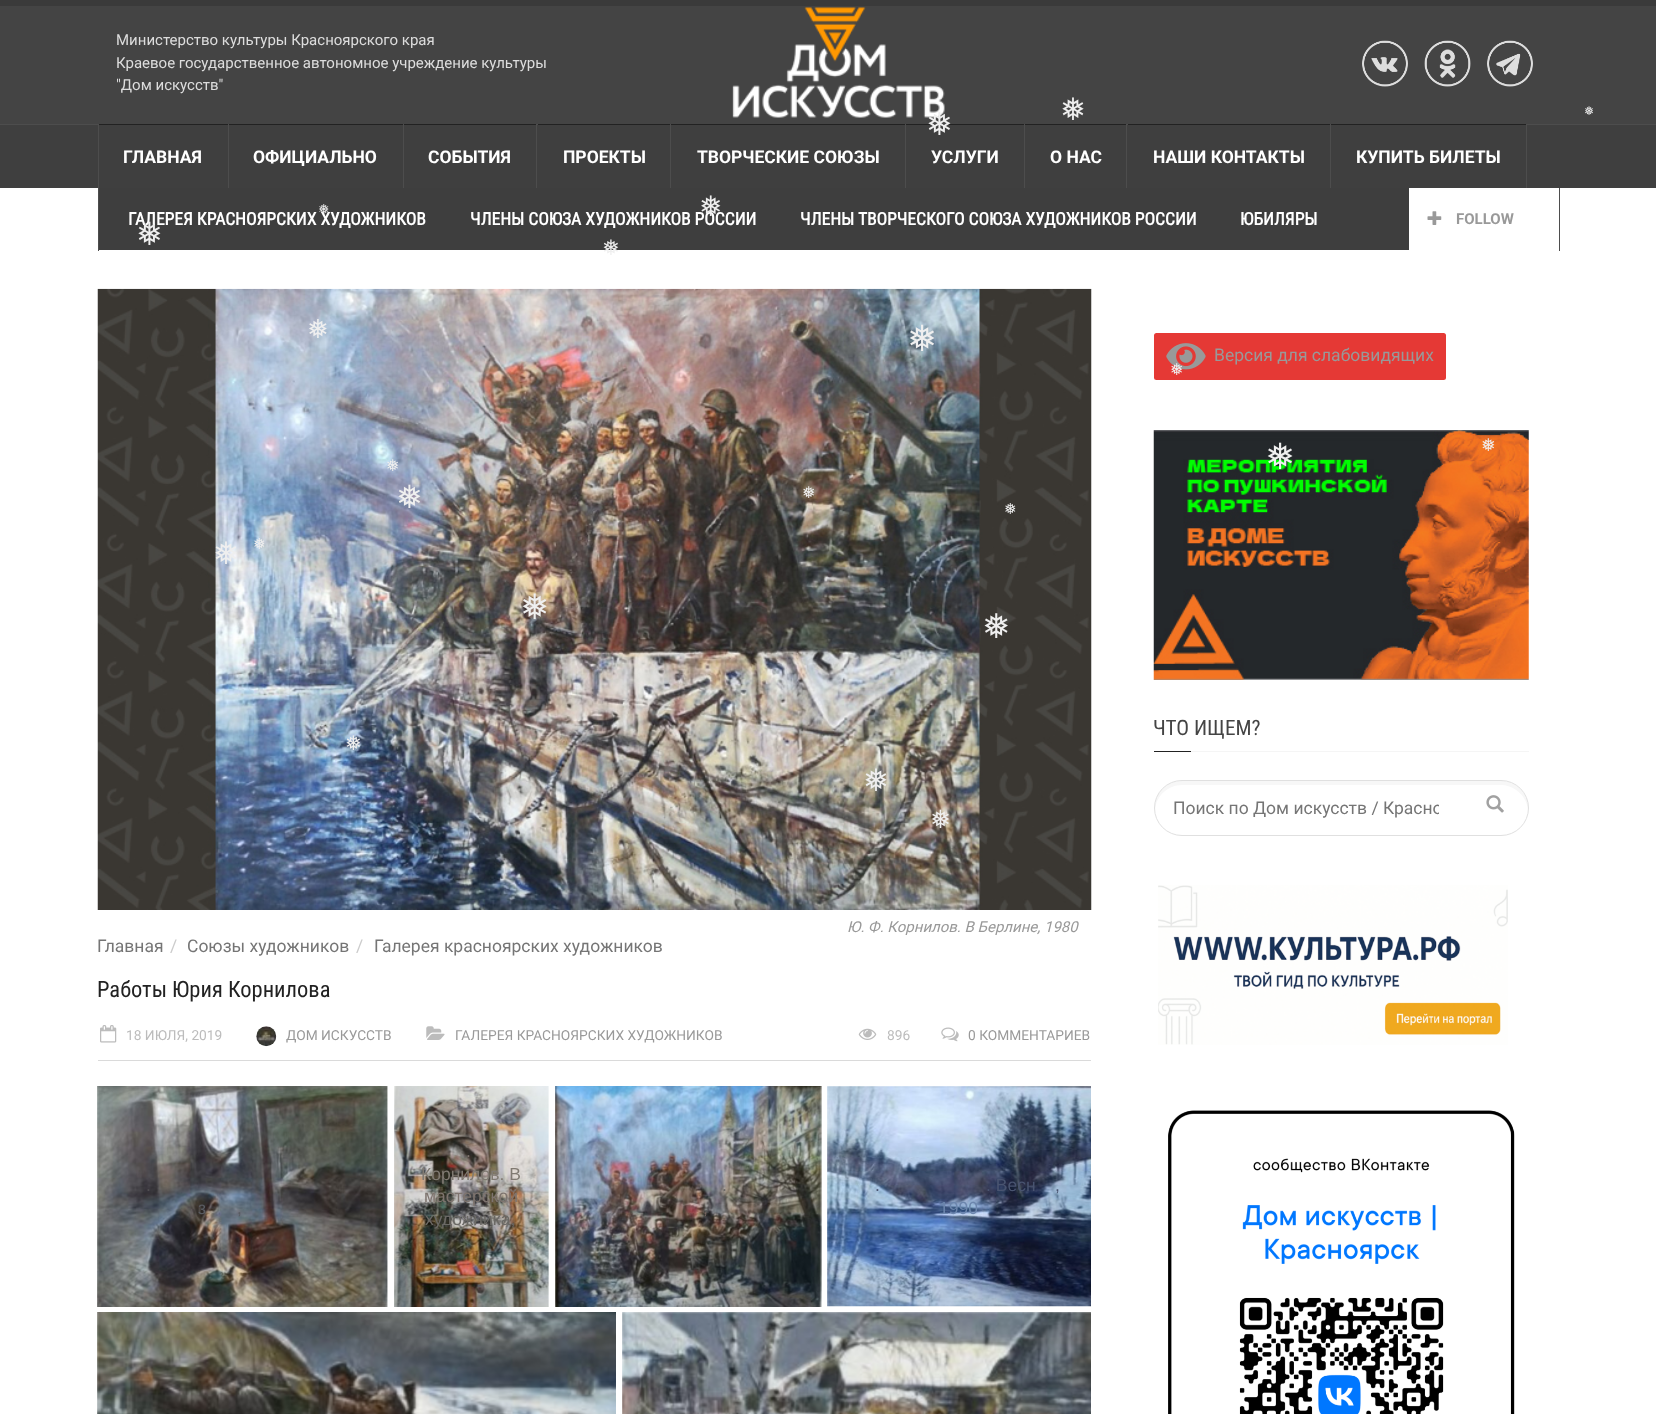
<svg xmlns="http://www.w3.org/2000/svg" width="1656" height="1414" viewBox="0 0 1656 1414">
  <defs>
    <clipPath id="clip1"><path d="M1174 798h265v20H1174z"/></clipPath>
  </defs>
  <rect width="100%" height="100%" fill="#fff"/>
  <path d="M0 6h1656v118H0z" fill="#444"/>
  <path d="M0 0h1656v6H0z" fill="#3a3a3a"/>
  <path d="M0 124h1656v1H0z" fill="#4d4d4d"/>
  <image x="732" y="7" width="213" height="111" href="img/1.png"/>
  <image x="1362" y="40" width="46" height="47" href="img/2.png"/>
  <image x="1424" y="40" width="47" height="47" href="img/3.png"/>
  <image x="1487" y="40" width="46" height="47" href="img/4.png"/>
  <path d="M0 125h1656v63H0z" fill="#3f3f3f"/>
  <path d="M98 124h1v127H98z" fill="#4d4d4d"/>
  <path d="M228 124h1v64H228z" fill="#4d4d4d"/>
  <path d="M99 124h129v1H99z" fill="#222"/>
  <path d="M403 124h1v64H403z" fill="#4d4d4d"/>
  <path d="M229 124h174v1H229z" fill="#222"/>
  <path d="M536 124h1v64H536z" fill="#4d4d4d"/>
  <path d="M404 124h132v1H404z" fill="#222"/>
  <path d="M670 124h1v64H670z" fill="#4d4d4d"/>
  <path d="M538 124h132v1H538z" fill="#222"/>
  <path d="M905 124h1v64H905z" fill="#4d4d4d"/>
  <path d="M671 124h234v1H671z" fill="#222"/>
  <path d="M1024 124h1v64H1024z" fill="#4d4d4d"/>
  <path d="M906 124h118v1H906z" fill="#222"/>
  <path d="M1126 124h1v64H1126z" fill="#4d4d4d"/>
  <path d="M1025 124h101v1H1025z" fill="#222"/>
  <path d="M1330 124h1v64H1330z" fill="#4d4d4d"/>
  <path d="M1128 124h202v1H1128z" fill="#222"/>
  <path d="M1526 124h1v64H1526z" fill="#4d4d4d"/>
  <path d="M1331 124h195v1H1331z" fill="#222"/>
  <path d="M1559 188h1v63H1559z" fill="#4d4d4d"/>
  <image x="1427" y="211" width="15" height="14" href="img/5.png"/>
  <path d="M99 188h1310v62H99z" fill="#3e3e3e"/>
  <rect x="1154" y="333" width="292" height="47" rx="2.5" fill="#e53935"/>
  <image x="1166" y="343" width="40" height="27" href="img/6.png"/>
  <image x="1153" y="430" width="376" height="250" href="img/7.png"/>
  <path d="M1191 751h338v1H1191z" fill="#f5f5f5"/>
  <path d="M1154 751h37v1H1154z" fill="#222"/>
  <path d="M1182 785H1501C1514 785 1527 796 1528 810V808C1528 793 1516 781 1501 781H1182C1167 781 1155 793 1155 808V810C1156 796 1168 785 1182 785Z" fill="#f7f7f7"/>
  <rect x="1154.5" y="780.5" width="374" height="55" rx="27.5" fill="none" stroke="#e0e0e0"/>
  <image x="1486" y="795" width="18" height="18" href="img/8.png"/>
  <image x="1158" y="885" width="350" height="160" href="img/9.png"/>
  <image x="1168" y="1110" width="347" height="304" href="img/10.png"/>
  <image x="97" y="288" width="995" height="622" href="img/11.png"/>
  <path d="M98 1060h993v1H98z" fill="#dadada"/>
  <image x="100" y="1025" width="17" height="18" href="img/12.png"/>
  <image x="256" y="1026" width="21" height="21" href="img/13.png"/>
  <image x="426" y="1026" width="19" height="14" href="img/14.png"/>
  <image x="858" y="1028" width="19" height="12" href="img/15.png"/>
  <image x="941" y="1027" width="18" height="15" href="img/16.png"/>
  <image x="97" y="1086" width="291" height="221" href="img/17.png"/>
  <image x="394" y="1086" width="155" height="221" href="img/18.png"/>
  <image x="555" y="1086" width="267" height="221" href="img/19.png"/>
  <image x="827" y="1086" width="264" height="221" href="img/20.png"/>
  <image x="97" y="1312" width="519" height="102" href="img/21.png"/>
  <image x="622" y="1312" width="469" height="102" href="img/22.png"/>
  <g font-family="Roboto" font-size="15" fill="#ddd">
    <text x="116" y="45">Министерство культуры Красноярского края</text>
    <text x="116" y="68">Краевое государственное автономное учреждение культуры</text>
    <text x="116" y="90">"Дом искусств"</text>
  </g>
  <g font-family="Roboto" font-size="17.5" font-weight="bold" fill="#fff">
    <text x="123" y="163">ГЛАВНАЯ</text>
    <text x="253" y="163">ОФИЦИАЛЬНО</text>
    <text x="428" y="163">СОБЫТИЯ</text>
    <text x="563" y="163">ПРОЕКТЫ</text>
    <text x="697" y="163">ТВОРЧЕСКИЕ СОЮЗЫ</text>
    <text x="931" y="163">УСЛУГИ</text>
    <text x="1050" y="163">О НАС</text>
    <text x="1153" y="163">НАШИ КОНТАКТЫ</text>
    <text x="1356" y="163">КУПИТЬ БИЛЕТЫ</text>
  </g>
  <text x="1456" y="224" font-family="Roboto" font-size="15" font-weight="bold" fill="#999">FOLLOW</text>
  <g font-family="Roboto Condensed" font-size="17.5" font-weight="bold" fill="#fff">
    <text x="128" y="225">ГАЛЕРЕЯ КРАСНОЯРСКИХ ХУДОЖНИКОВ</text>
    <text x="470" y="225">ЧЛЕНЫ СОЮЗА ХУДОЖНИКОВ РОССИИ</text>
    <text x="800" y="225">ЧЛЕНЫ ТВОРЧЕСКОГО СОЮЗА ХУДОЖНИКОВ РОССИИ</text>
    <text x="1240" y="225">ЮБИЛЯРЫ</text>
  </g>
  <text x="1214" y="361" font-family="Roboto" font-size="17.5" fill="#999">Версия для слабовидящих</text>
  <text x="1153" y="735" font-family="Roboto Condensed" font-size="21.25" fill="#444">ЧТО ИЩЕМ?</text>
  <g clip-path="url(#clip1)">
    <text x="1173" y="814" font-family="Roboto" font-size="17.5" fill="#757575">Поиск по Дом искусств / Красно</text>
  </g>
  <text x="847" y="932" font-family="Roboto" font-size="15" font-style="italic" fill="#999">Ю. Ф. Корнилов. В Берлине, 1980</text>
  <text x="97" y="952" font-family="Roboto" font-size="17.5" fill="#757575">Главная</text>
  <text x="170" y="952" font-family="Roboto" font-size="17.5" fill="#ccc">/</text>
  <text x="187" y="952" font-family="Roboto" font-size="17.5" fill="#757575">Союзы художников</text>
  <text x="356" y="952" font-family="Roboto" font-size="17.5" fill="#ccc">/</text>
  <text x="374" y="952" font-family="Roboto" font-size="17.5" fill="#757575">Галерея красноярских художников</text>
  <text x="97" y="997" font-family="Roboto Condensed" font-size="22.5" fill="#222">Работы Юрия Корнилова</text>
  <text x="126" y="1040" font-family="Roboto" font-size="13.75" fill="#bcbcbc">18 ИЮЛЯ, 2019</text>
  <g font-family="Roboto" font-size="13.75" fill="#999">
    <text x="286" y="1040">ДОМ ИСКУССТВ</text>
    <text x="455" y="1040">ГАЛЕРЕЯ КРАСНОЯРСКИХ ХУДОЖНИКОВ</text>
  </g>
  <text x="887" y="1040" font-family="Roboto" font-size="13.75" fill="#bcbcbc">896</text>
  <text x="968" y="1040" font-family="Roboto" font-size="13.75" fill="#999">0 КОММЕНТАРИЕВ</text>
  <text x="146" y="1191" font-family="Liberation Sans" font-size="17.5" fill="#504e51">.</text>
  <g font-family="Liberation Sans" font-size="17.5" fill="#595b61">
    <text x="198" y="1214">з</text>
    <text x="237" y="1214">,</text>
  </g>
  <text x="466" y="1157" font-family="Liberation Sans" font-size="17.5" fill="#7e746e">.</text>
  <text x="421" y="1180" font-family="Liberation Sans" font-size="17.5" fill="#807a72">Корнилов. В</text>
  <text x="424" y="1202" font-family="Liberation Sans" font-size="17.5" fill="#7e746e">мастерской</text>
  <g font-family="Liberation Sans" font-size="17.5" fill="#6b6965">
    <text x="425" y="1225">художника,</text>
    <text x="722" y="1191">.</text>
  </g>
  <text x="703" y="1214" font-family="Liberation Sans" font-size="17.5" fill="#73635e">,</text>
  <g font-family="Liberation Sans" font-size="17.5" fill="#495470">
    <text x="875" y="1191">.</text>
    <text x="986" y="1191">. Весн</text>
    <text x="1055" y="1191">,</text>
  </g>
  <text x="939" y="1214" font-family="Liberation Sans" font-size="17.5" fill="#6c86ad">1990</text>
  <text x="1060" y="120" font-family="DejaVu Sans" font-size="31" fill="#efefef">❅</text>
  <text x="1584" y="115" font-family="DejaVu Sans" font-size="12" fill="#efefef">❅</text>
  <text x="926" y="135" font-family="DejaVu Sans" font-size="32" fill="#efefef">❅</text>
  <text x="318" y="214" font-family="DejaVu Sans" font-size="13.75" fill="#efefef">❅</text>
  <text x="699" y="216" font-family="DejaVu Sans" font-size="28" fill="#efefef">❅</text>
  <text x="136" y="245" font-family="DejaVu Sans" font-size="32" fill="#efefef">❅</text>
  <text x="602" y="255" font-family="DejaVu Sans" font-size="21.25" fill="#efefef">❅</text>
  <text x="307" y="338" font-family="DejaVu Sans" font-size="26" fill="#efefef">❅</text>
  <text x="907" y="351" font-family="DejaVu Sans" font-size="36" fill="#efefef">❅</text>
  <g font-family="DejaVu Sans" font-size="16" fill="#efefef">
    <text x="1170" y="375">❅</text>
    <text x="386" y="471">❅</text>
  </g>
  <text x="1265" y="469" font-family="DejaVu Sans" font-size="36" fill="#efefef">❅</text>
  <text x="1481" y="451" font-family="DejaVu Sans" font-size="17.5" fill="#efefef">❅</text>
  <text x="396" y="508" font-family="DejaVu Sans" font-size="32" fill="#efefef">❅</text>
  <text x="802" y="498" font-family="DejaVu Sans" font-size="16" fill="#efefef">❅</text>
  <text x="1004" y="514" font-family="DejaVu Sans" font-size="15" fill="#efefef">❅</text>
  <text x="213" y="564" font-family="DejaVu Sans" font-size="31" fill="#efefef">❅</text>
  <text x="253" y="549" font-family="DejaVu Sans" font-size="15" fill="#efefef">❅</text>
  <text x="520" y="619" font-family="DejaVu Sans" font-size="35" fill="#efefef">❅</text>
  <text x="982" y="638" font-family="DejaVu Sans" font-size="34" fill="#efefef">❅</text>
  <text x="345" y="750" font-family="DejaVu Sans" font-size="20" fill="#efefef">❅</text>
  <text x="863" y="791" font-family="DejaVu Sans" font-size="31" fill="#efefef">❅</text>
  <text x="930" y="828" font-family="DejaVu Sans" font-size="25" fill="#efefef">❅</text>
</svg>
